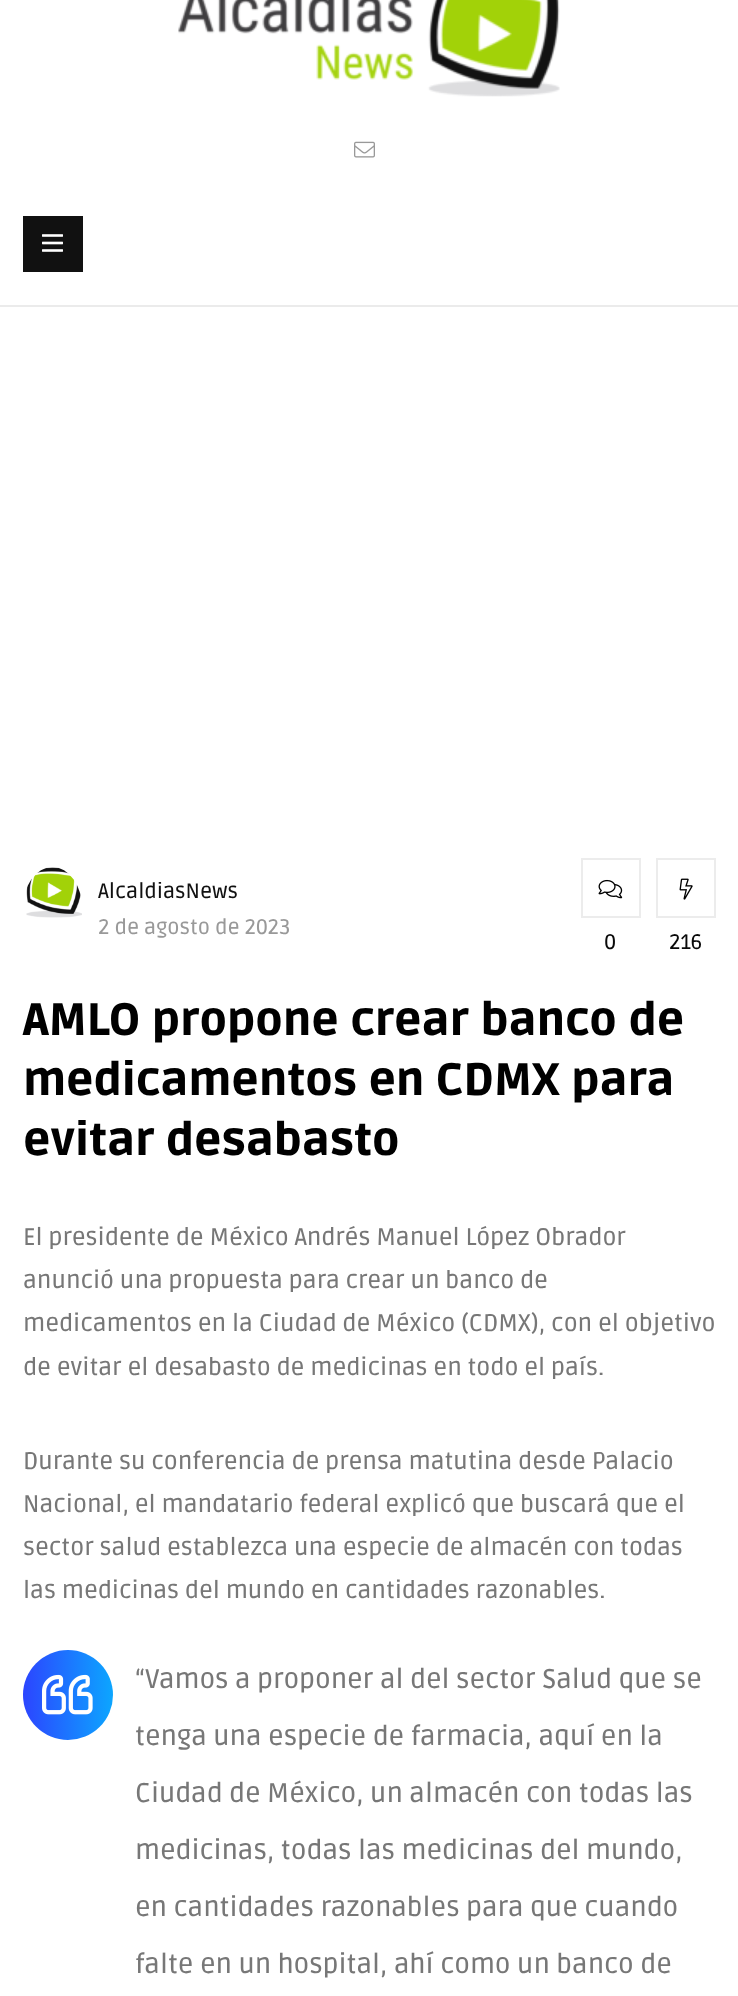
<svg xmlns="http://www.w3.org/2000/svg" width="738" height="1996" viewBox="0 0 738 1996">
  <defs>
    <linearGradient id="g1" gradientUnits="userSpaceOnUse" x1="22" y1="1695" x2="113" y2="1695"><stop offset="0" stop-color="#2c44ff"/><stop offset="1" stop-color="#0ca6ff"/></linearGradient>
  </defs>
  <rect width="100%" height="100%" fill="#fff"/>
  <path d="M0 305h738v2H0z" fill="#ebebeb"/>
  <image x="178" y="0" width="382" height="97" href="img/1.png"/>
  <image x="354" y="141" width="21" height="17" href="img/2.png"/>
  <path d="M23 216h60v56H23z" fill="#111"/>
  <image x="42" y="234" width="21" height="18" href="img/3.png"/>
  <image x="26" y="867" width="56" height="51" href="img/4.png"/>
  <path d="M582 859h58v58H582z" fill="none" stroke="#ececec" stroke-width="2"/>
  <image x="598" y="879" width="25" height="20" href="img/5.png"/>
  <path d="M657 859h58v58H657z" fill="none" stroke="#ececec" stroke-width="2"/>
  <image x="679" y="878" width="14" height="22" href="img/6.png"/>
  <circle cx="68" cy="1695" r="45" fill="url(#g1)"/>
  <image x="42" y="1674" width="51" height="41" href="img/7.png"/>
  <text x="98" y="898" font-family="Ruda" font-size="21" font-weight="500" fill="#111">AlcaldiasNews</text>
  <text x="98" y="934" font-family="Ruda" font-size="21" font-weight="500" fill="#999">2 de agosto de 2023</text>
  <g font-family="Ruda" font-size="21" font-weight="500" fill="#0a0a0a">
    <text x="604" y="949">0</text>
    <text x="669" y="949">216</text>
  </g>
  <g font-family="Ruda" font-size="45" font-weight="900" fill="#000">
    <text x="23" y="1035">AMLO propone crear banco de</text>
    <text x="23" y="1095">medicamentos en CDMX para</text>
    <text x="23" y="1155">evitar desabasto</text>
  </g>
  <g font-family="Ruda" font-size="24" font-weight="500" fill="#777">
    <text x="23" y="1245">El presidente de México Andrés Manuel López Obrador</text>
    <text x="23" y="1288">anunció una propuesta para crear un banco de</text>
    <text x="23" y="1331">medicamentos en la Ciudad de México (CDMX), con el objetivo</text>
    <text x="23" y="1375">de evitar el desabasto de medicinas en todo el país.</text>
    <text x="23" y="1469">Durante su conferencia de prensa matutina desde Palacio</text>
    <text x="23" y="1512">Nacional, el mandatario federal explicó que buscará que el</text>
    <text x="23" y="1555">sector salud establezca una especie de almacén con todas</text>
    <text x="23" y="1598">las medicinas del mundo en cantidades razonables.</text>
  </g>
  <g font-family="Ruda" font-size="27" font-weight="500" fill="#777">
    <text x="135" y="1688">“Vamos a proponer al del sector Salud que se</text>
    <text x="135" y="1745">tenga una especie de farmacia, aquí en la</text>
    <text x="135" y="1802">Ciudad de México, un almacén con todas las</text>
    <text x="135" y="1859">medicinas, todas las medicinas del mundo,</text>
    <text x="135" y="1916">en cantidades razonables para que cuando</text>
    <text x="135" y="1973">falte en un hospital, ahí como un banco de</text>
  </g>
</svg>
